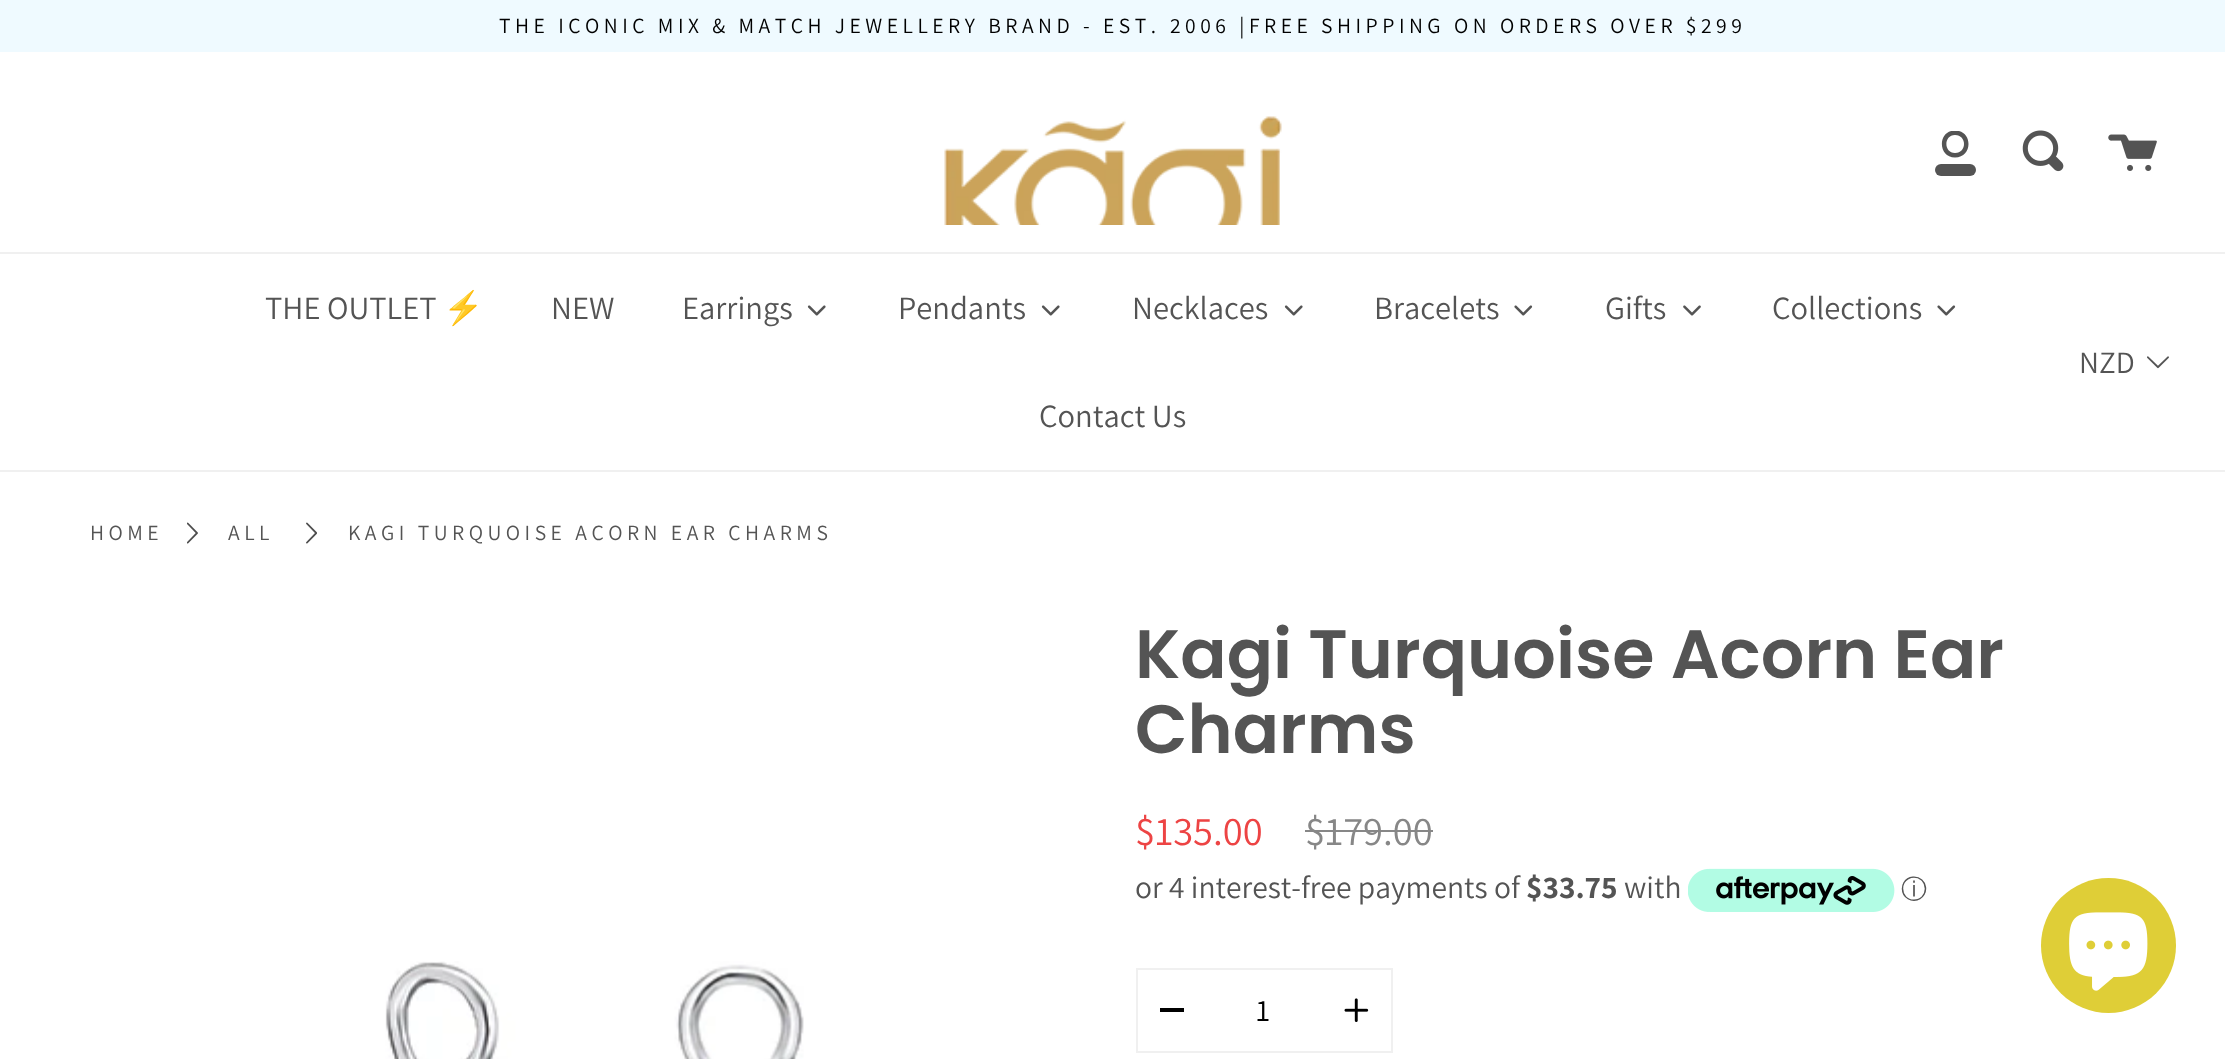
<svg xmlns="http://www.w3.org/2000/svg" width="2225" height="1059" viewBox="0 0 2225 1059">
  <style>*{font-kerning:none!important;font-variant-ligatures:none!important}</style>
  <defs>
    <clipPath id="clip1"><path d="M1933 131h45v45H1933z"/></clipPath>
  </defs>
  <rect width="100%" height="100%" fill="#fff"/>
  <path d="M0 0h2225v52H0z" fill="#effaff"/>
  <image x="944" y="116" width="338" height="109" href="img/1.png"/>
  <g clip-path="url(#clip1)">
    <path d="M1955 157.5C1937.5 157.5 1937.5 130.5 1955 130.5C1973 130.5 1973 157.5 1955 157.5ZM1955 153C1967 153 1967 135 1955 135C1943.5 135 1943.5 153 1955 153Z" fill="#545454"/>
  </g>
  <rect x="1935" y="164" width="41" height="12" rx="6" fill="#545454"/>
  <image x="2022" y="130" width="42" height="42" href="img/2.png"/>
  <image x="2108" y="134" width="49" height="37" href="img/3.png"/>
  <path d="M0 252h2225v2H0z" fill="#f0f0f0"/>
  <path d="M0 470h2225v2H0z" fill="#f0f0f0"/>
  <image x="807" y="305" width="19" height="11" href="img/4.png"/>
  <image x="1041" y="305" width="19" height="11" href="img/4.png"/>
  <image x="1284" y="305" width="19" height="11" href="img/4.png"/>
  <image x="1514" y="305" width="19" height="11" href="img/5.png"/>
  <image x="1683" y="305" width="18" height="11" href="img/6.png"/>
  <image x="1937" y="305" width="19" height="11" href="img/5.png"/>
  <image x="2147" y="356" width="22" height="13" href="img/7.png"/>
  <image x="187" y="522" width="11" height="22" href="img/8.png"/>
  <image x="306" y="522" width="11" height="22" href="img/9.png"/>
  <image x="385" y="961" width="419" height="98" href="img/10.png"/>
  <path d="M1305 830h128v2H1305z" fill="#878787"/>
  <image x="1688" y="868" width="207" height="44" href="img/11.png"/>
  <path d="M1137 969h255v83H1137z" fill="none" stroke="#f0f0f0" stroke-width="2"/>
  <path d="M1160 1008h24v4H1160z" fill="#000"/>
  <image x="1344" y="998" width="25" height="24" href="img/12.png"/>
  <circle cx="2108.5" cy="945.5" r="67.5" fill="#dfce37"/>
  <image x="2069" y="912" width="79" height="79" href="img/13.png"/>
  <text x="499" y="33" font-family="Assistant" font-size="21.6" letter-spacing="4.5" fill="#000">THE ICONIC MIX &amp; MATCH JEWELLERY BRAND - EST.</text>
  <text x="1170" y="33" font-family="Assistant" font-size="21.6" letter-spacing="4.5" fill="#000">2006 |FREE SHIPPING ON ORDERS OVER $299</text>
  <text x="265" y="319" font-family="Assistant" font-size="32.5" fill="#545454">THE OUTLET</text>
  <text x="443" y="319" font-family="Noto Color Emoji" font-size="32.5" fill="#545454">⚡</text>
  <g font-family="Assistant" font-size="32.5" fill="#545454">
    <text x="551" y="319">NEW</text>
    <text x="682" y="319">Earrings</text>
    <text x="898" y="319">Pendants</text>
    <text x="1132" y="319">Necklaces</text>
    <text x="1374" y="319">Bracelets</text>
    <text x="1605" y="319">Gifts</text>
    <text x="1772" y="319">Collections</text>
    <text x="1039" y="427">Contact Us</text>
  </g>
  <text x="2079" y="373" font-family="Assistant" font-size="31" fill="#545454">NZD</text>
  <g font-family="Assistant" font-size="21.6" letter-spacing="4.5" fill="#545454">
    <text x="90" y="540">HOME</text>
    <text x="228" y="540">ALL</text>
    <text x="348" y="540">KAGI TURQUOISE ACORN EAR CHARMS</text>
  </g>
  <g font-family="Poppins" font-size="68.4" font-weight="600" fill="#545454">
    <text x="1135" y="678">Kagi Turquoise Acorn Ear</text>
    <text x="1135" y="753">Charms</text>
  </g>
  <text x="1135" y="845" font-family="Assistant" font-size="40.5" fill="#ed4444">$135.00</text>
  <text x="1305" y="845" font-family="Assistant" font-size="40.5" fill="#878787">$179.00</text>
  <text x="1135" y="898" font-family="Assistant" font-size="31.5" fill="#545454">or 4 interest-free payments of</text>
  <text x="1526" y="898" font-family="Assistant" font-size="31.5" font-weight="bold" fill="#545454">$33.75</text>
  <text x="1624" y="898" font-family="Assistant" font-size="31.5" fill="#545454">with</text>
  <text x="1901" y="898" font-family="WenQuanYi Zen Hei" font-size="26" font-weight="500" fill="#545454">ⓘ</text>
  <text x="1256" y="1021" font-family="Assistant" font-size="31" fill="#000">1</text>
</svg>
